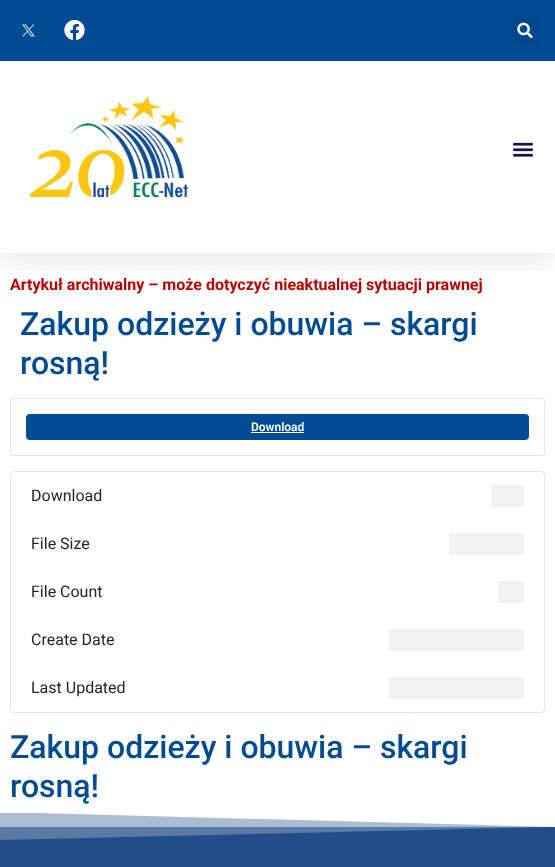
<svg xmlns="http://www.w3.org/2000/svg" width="555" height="867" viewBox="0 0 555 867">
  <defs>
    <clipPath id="clip1"><path d="M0 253h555v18H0z"/></clipPath>
  </defs>
  <rect width="100%" height="100%" fill="#fff"/>
  <g clip-path="url(#clip1)">
    <path d="M0 5h555v253H0z" fill="#0000001a" filter="blur(15px)"/>
  </g>
  <path d="M0 0h555v61H0z" fill="#014b95"/>
  <image x="22" y="24" width="13" height="13" href="img/1.png"/>
  <image x="64" y="20" width="21" height="21" href="img/2.png"/>
  <rect x="509" y="15" width="31" height="31" rx="3" fill="#01478e"/>
  <image x="517" y="22" width="16" height="17" href="img/3.png"/>
  <image x="30" y="96" width="159" height="102" href="img/4.png"/>
  <image x="512" y="142" width="22" height="15" href="img/5.png"/>
  <rect x="10.5" y="398.5" width="534" height="57" rx="2.5" fill="none" stroke="#e5e5e5"/>
  <rect x="26" y="414" width="503" height="26" rx="4" fill="#014b95"/>
  <path d="M251 432h53v1H251z" fill="#fff"/>
  <path d="M14 471.5H541C543 471.5 544.5 473 544.5 475V520.5H10.5V475C10.5 473 12 471.5 14 471.5Z" fill="none" stroke="#e5e5e5"/>
  <rect x="491" y="485" width="33" height="22" rx="3" fill="#f2f2f2"/>
  <path d="M11 520h533v1H11z" fill="#fff"/>
  <path d="M544 520h1v145H544z" fill="#e5e5e5"/>
  <path d="M10 520h1v145H10z" fill="#e5e5e5"/>
  <rect x="449" y="533" width="75" height="22" rx="3" fill="#f2f2f2"/>
  <rect x="498" y="581" width="26" height="22" rx="3" fill="#f2f2f2"/>
  <rect x="389" y="629" width="135" height="22" rx="3" fill="#f2f2f2"/>
  <path d="M10 664H545V709C545 711 543 713 541 713H14C12 713 10 711 10 709ZM11 664H544V709C544 711 543 712 541 712H14C12 712 11 711 11 709Z" fill="#e5e5e5" fill-rule="evenodd"/>
  <rect x="389" y="677" width="135" height="22" rx="3" fill="#f2f2f2"/>
  <path d="M0 827h555v40H0z" fill="#224d89"/>
  <path d="M0 813h555v14H0z" fill="#91a6c4"/>
  <path d="M0 812H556V827Z" fill="#fff"/>
  <path d="M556 812H0V840L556 827Z" fill="#ffffff40"/>
  <text x="10" y="290" font-family="Roboto" font-size="16" font-weight="bold" fill="#b00">Artykuł archiwalny – może dotyczyć nieaktualnej sytuacji prawnej</text>
  <g font-family="Roboto" font-size="32" font-weight="500" fill="#014b95">
    <text x="20" y="335">Zakup odzieży i obuwia – skargi</text>
    <text x="20" y="374">rosną!</text>
  </g>
  <text x="251" y="431" font-family="Roboto" font-size="12" font-weight="600" fill="#fff">Download</text>
  <g font-family="Roboto" font-size="16" fill="#212529">
    <text x="31" y="501">Download</text>
    <text x="31" y="549">File Size</text>
    <text x="31" y="597">File Count</text>
    <text x="31" y="645">Create Date</text>
    <text x="31" y="693">Last Updated</text>
  </g>
  <g font-family="Roboto" font-size="32" font-weight="500" fill="#014b95">
    <text x="10" y="758">Zakup odzieży i obuwia – skargi</text>
    <text x="10" y="797">rosną!</text>
  </g>
</svg>
